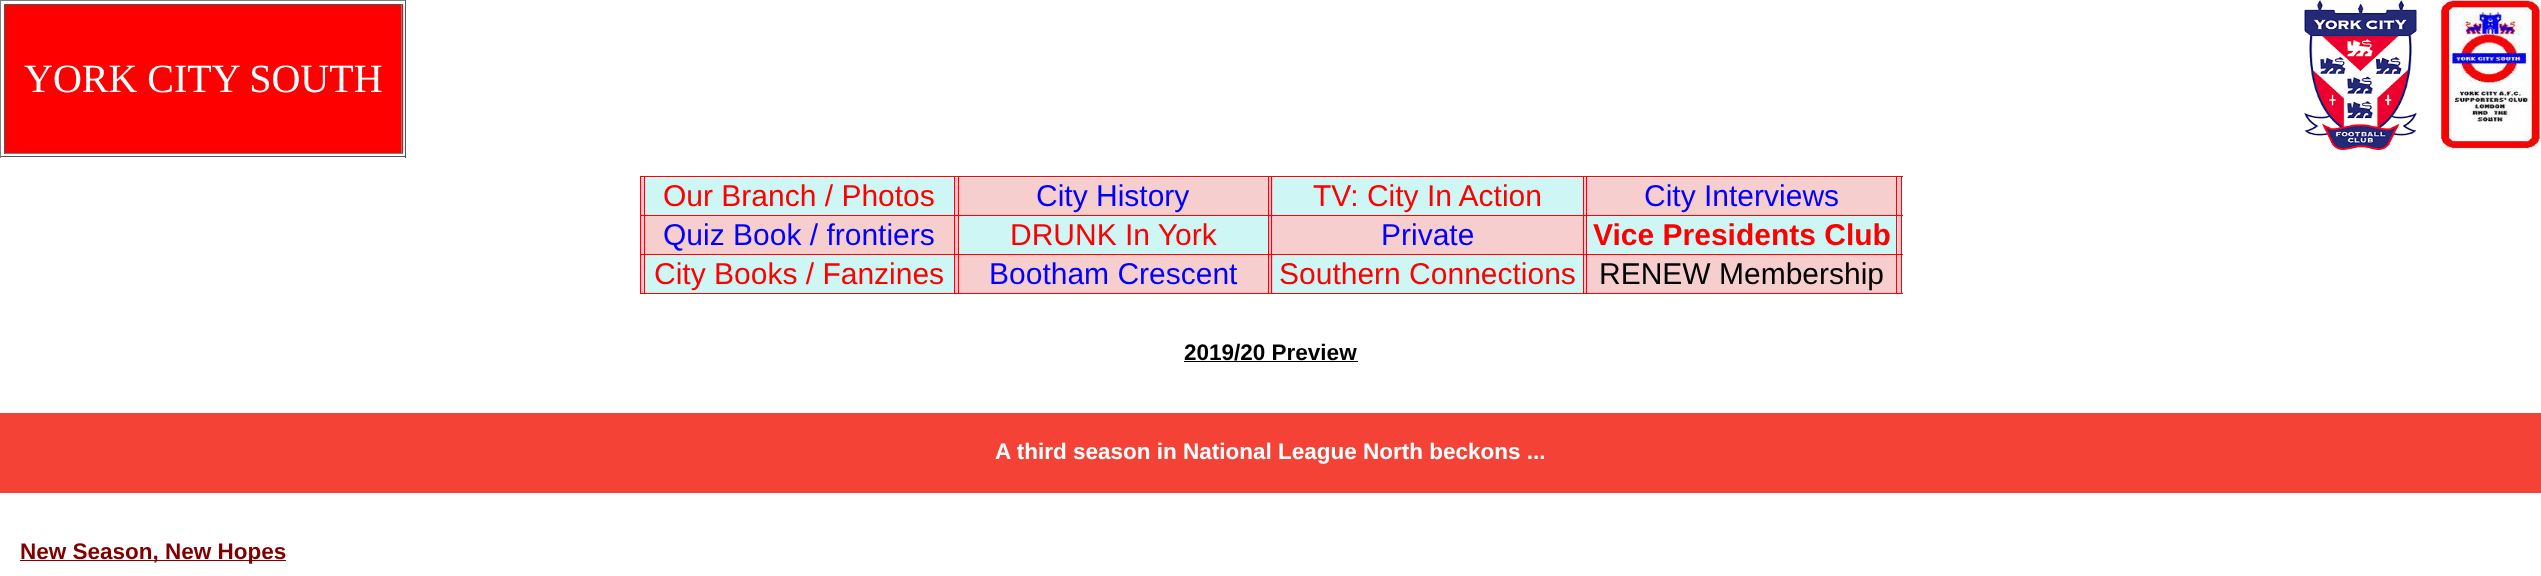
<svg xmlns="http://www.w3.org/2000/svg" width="2541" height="576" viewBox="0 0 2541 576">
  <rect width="100%" height="100%" fill="#fff"/>
  <path d="M0 0h406v1H0z" fill="#808080"/>
  <path d="M405 0h1v158H405z" fill="#555"/>
  <path d="M0 156h406v1H0z" fill="#555"/>
  <path d="M0 0h1v158H0z" fill="#808080"/>
  <path d="M5 5h398v148H5z" fill="#f00"/>
  <path d="M4 4h399v1H4z" fill="#555"/>
  <path d="M401 4h1v150H401z" fill="#808080"/>
  <path d="M4 153h399v1H4z" fill="#808080"/>
  <path d="M4 4h1v150H4z" fill="#555"/>
  <image x="2304" y="0" width="113" height="150" href="img/1.png"/>
  <image x="2441" y="0" width="100" height="150" href="img/2.png"/>
  <path d="M640 176h1263v1H640z" fill="#f00"/>
  <path d="M1901 176h1v118H1901z" fill="#f00"/>
  <path d="M641 178h3v116H641z" fill="#ffc0cb"/>
  <path d="M955 178h3v116H955z" fill="#ffc0cb"/>
  <path d="M1269 178h4v116H1269z" fill="#ffc0cb"/>
  <path d="M1584 178h2v116H1584z" fill="#ffc0cb"/>
  <path d="M1898 178h3v116H1898z" fill="#ffc0cb"/>
  <path d="M640 293h1263v1H640z" fill="#f00"/>
  <path d="M640 176h1v118H640z" fill="#f00"/>
  <path d="M645 178h309v37H645z" fill="#cef6f5"/>
  <path d="M1896 215h7v1H1896z" fill="#f00"/>
  <path d="M1587 216h311v38H1587z" fill="#cef6f5"/>
  <path d="M1896 254h7v1H1896z" fill="#f00"/>
  <path d="M1587 255h311v38H1587z" fill="#f6cece"/>
  <path d="M1896 254h1v40H1896z" fill="#f00"/>
  <path d="M1586 254h312v1H1586z" fill="#f00"/>
  <path d="M1896 215h1v40H1896z" fill="#f00"/>
  <path d="M1586 215h312v1H1586z" fill="#f00"/>
  <path d="M1586 254h1v40H1586z" fill="#f00"/>
  <path d="M1583 254h5v1H1583z" fill="#f00"/>
  <path d="M1586 215h1v40H1586z" fill="#f00"/>
  <path d="M1583 215h5v1H1583z" fill="#f00"/>
  <path d="M1583 254h1v40H1583z" fill="#f00"/>
  <path d="M1271 254h313v1H1271z" fill="#f00"/>
  <path d="M1583 215h1v40H1583z" fill="#f00"/>
  <path d="M1271 215h313v1H1271z" fill="#f00"/>
  <path d="M1271 254h1v40H1271z" fill="#f00"/>
  <path d="M1268 254h5v1H1268z" fill="#f00"/>
  <path d="M1271 215h1v40H1271z" fill="#f00"/>
  <path d="M1268 215h5v1H1268z" fill="#f00"/>
  <path d="M1268 254h1v40H1268z" fill="#f00"/>
  <path d="M958 254h311v1H958z" fill="#f00"/>
  <path d="M1268 215h1v40H1268z" fill="#f00"/>
  <path d="M958 215h311v1H958z" fill="#f00"/>
  <path d="M958 254h1v40H958z" fill="#f00"/>
  <path d="M954 254h5v1H954z" fill="#f00"/>
  <path d="M958 215h1v40H958z" fill="#f00"/>
  <path d="M954 215h5v1H954z" fill="#f00"/>
  <path d="M954 254h1v40H954z" fill="#f00"/>
  <path d="M644 254h311v1H644z" fill="#f00"/>
  <path d="M954 215h1v40H954z" fill="#f00"/>
  <path d="M644 215h311v1H644z" fill="#f00"/>
  <path d="M644 254h1v40H644z" fill="#f00"/>
  <path d="M640 254h5v1H640z" fill="#f00"/>
  <path d="M644 215h1v40H644z" fill="#f00"/>
  <path d="M640 215h5v1H640z" fill="#f00"/>
  <path d="M644 176h1v40H644z" fill="#f00"/>
  <path d="M954 176h1v40H954z" fill="#f00"/>
  <path d="M959 178h309v37H959z" fill="#f6cece"/>
  <path d="M958 176h1v40H958z" fill="#f00"/>
  <path d="M1268 176h1v40H1268z" fill="#f00"/>
  <path d="M1273 178h310v37H1273z" fill="#cef6f5"/>
  <path d="M1271 176h1v40H1271z" fill="#f00"/>
  <path d="M1583 176h1v40H1583z" fill="#f00"/>
  <path d="M1587 178h311v37H1587z" fill="#f6cece"/>
  <path d="M1586 176h1v40H1586z" fill="#f00"/>
  <path d="M1896 176h1v40H1896z" fill="#f00"/>
  <path d="M645 216h309v38H645z" fill="#f6cece"/>
  <path d="M959 216h309v38H959z" fill="#cef6f5"/>
  <path d="M1273 216h310v38H1273z" fill="#f6cece"/>
  <path d="M645 255h309v38H645z" fill="#cef6f5"/>
  <path d="M959 255h309v38H959z" fill="#f6cece"/>
  <path d="M1273 255h310v38H1273z" fill="#cef6f5"/>
  <path d="M1184 361h174v1H1184z" fill="#000"/>
  <path d="M0 413h2541v80H0z" fill="#f44336"/>
  <path d="M20 560h266v1H20z" fill="#800000"/>
  <text x="24" y="92" font-family="Liberation Serif" font-size="40" fill="#fff">YORK CITY SOUTH</text>
  <text x="663" y="206" font-family="Liberation Sans" font-size="30" fill="#f00">Our Branch / Photos</text>
  <text x="1036" y="206" font-family="Liberation Sans" font-size="30" fill="#00f">City History</text>
  <text x="1313" y="206" font-family="Liberation Sans" font-size="30" fill="#f00">TV: City In Action</text>
  <g font-family="Liberation Sans" font-size="30" fill="#00f">
    <text x="1644" y="206">City Interviews</text>
    <text x="663" y="245">Quiz Book / frontiers</text>
  </g>
  <text x="1010" y="245" font-family="Liberation Sans" font-size="30" fill="#f00">DRUNK In York</text>
  <text x="1381" y="245" font-family="Liberation Sans" font-size="30" fill="#00f">Private</text>
  <text x="1593" y="245" font-family="Liberation Sans" font-size="30" font-weight="bold" fill="#f00">Vice Presidents Club</text>
  <text x="654" y="284" font-family="Liberation Sans" font-size="30" fill="#f00">City Books / Fanzines</text>
  <text x="989" y="284" font-family="Liberation Sans" font-size="30" fill="#00f">Bootham Crescent</text>
  <text x="1279" y="284" font-family="Liberation Sans" font-size="30" fill="#f00">Southern Connections</text>
  <text x="1599" y="284" font-family="Liberation Sans" font-size="30" fill="#000">RENEW Membership</text>
  <text x="1184" y="360" font-family="Liberation Sans" font-size="22.5" font-weight="bold" fill="#000">2019/20 Preview</text>
  <text x="995" y="459" font-family="Liberation Sans" font-size="22.5" font-weight="bold" fill="#fff">A third season in National League North beckons ...</text>
  <text x="20" y="559" font-family="Liberation Sans" font-size="22.5" font-weight="bold" fill="#800000">New Season, New Hopes</text>
</svg>
